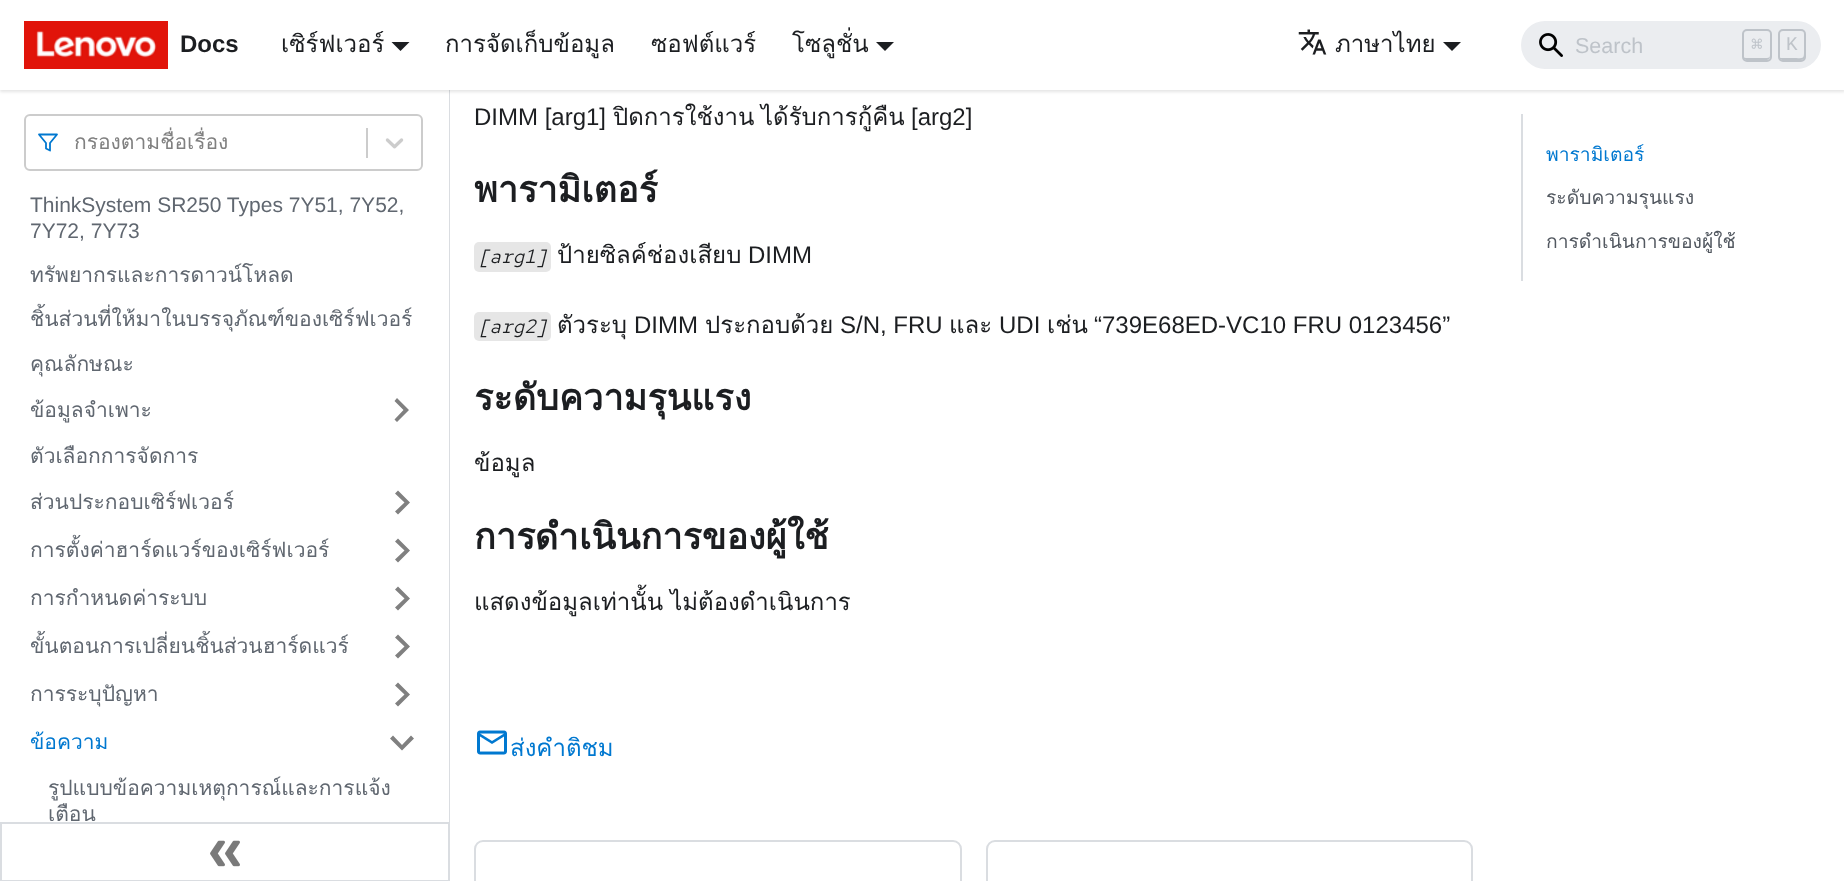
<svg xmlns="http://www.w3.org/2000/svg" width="1844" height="881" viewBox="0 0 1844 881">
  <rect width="100%" height="100%" fill="#fff"/>
  <path d="M449 90h1v732H449z" fill="#dadde1"/>
  <path d="M0 2h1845v90H0z" fill="#0000001a" filter="blur(1.5px)"/>
  <path d="M0 0h1844v90H0z" fill="#fff"/>
  <image x="24" y="21" width="144" height="48" href="img/1.png"/>
  <path d="M391.5 42H409.5L400.5 51Z" fill="#1c1e21"/>
  <path d="M876 42H894L885 51Z" fill="#1c1e21"/>
  <image x="1298" y="29" width="29" height="26" href="img/2.png"/>
  <path d="M1443 42H1461L1452 51Z" fill="#1c1e21"/>
  <rect x="1521" y="21" width="300" height="48" rx="24" fill="#ebedf0"/>
  <image x="1539" y="33" width="24" height="24" href="img/3.png"/>
  <path d="M1743 55C1743 60 1744.5 60 1749.5 60H1763.5C1768.5 60 1770 60 1770 55C1770 57 1769 58 1767 58H1746C1744 58 1743 57 1743 55Z" fill="#bec3c9"/>
  <rect x="1743" y="30" width="28" height="31" rx="4" fill="none" stroke="#bec3c9" stroke-width="2"/>
  <path d="M1779 55C1779 60 1780.5 60 1785.5 60H1792C1808 60 1805 61.5 1805 45V37C1805 35 1805.5 32 1804 30.5V47.5C1804 60.5 1805 58 1791.5 58H1780.5C1779.5 57.5 1779 56 1779 55Z" fill="#bec3c9"/>
  <rect x="1779" y="30" width="26" height="31" rx="4" fill="none" stroke="#bec3c9" stroke-width="2"/>
  <rect x="25" y="115" width="397" height="55" rx="5" fill="none" stroke="#ccc" stroke-width="2"/>
  <path d="M57 134.5H39L46 143V148.5L50 150.5V143Z" fill="none" stroke="#0078d0" stroke-width="1.8" stroke-linecap="round" stroke-linejoin="round"/>
  <path d="M366 128h2v30H366z" fill="#ccc"/>
  <image x="385" y="138" width="19" height="11" href="img/4.png"/>
  <path d="M394.5 401L403.5 410L394.5 419.5L397 422L409 410L397 398Z" fill="#808080"/>
  <path d="M395 493.5L404.5 502.5L395 511.5L398 514.5L410 502.5L398 490.5Z" fill="#808080"/>
  <path d="M395 541.5L404.5 550.5L395 559.5L398 562.5L410 550.5L398 538.5Z" fill="#808080"/>
  <path d="M395 589.5L404.5 598.5L395 607.5L398 610.5L410 598.5L398 586.5Z" fill="#808080"/>
  <path d="M395 637.5L404.5 646.5L395 655.5L398 658.5L410 646.5L398 634.5Z" fill="#808080"/>
  <path d="M395 685.5L404.5 694.5L395 703.5L398 706.5L410 694.5L398 682.5Z" fill="#808080"/>
  <path d="M411 735.5L402 745L393 735.5L390 738.5L402 750.5L414 738.5Z" fill="#808080"/>
  <path d="M1 823h448v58H1z" fill="none" stroke="#dadde1" stroke-width="2"/>
  <image x="210" y="840" width="30" height="27" href="img/5.png"/>
  <rect x="474" y="242" width="77" height="30" rx="5" fill="#e6e6e6"/>
  <rect x="474" y="312" width="77" height="29" rx="5" fill="#e6e6e6"/>
  <rect x="475" y="841" width="486" height="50" rx="8" fill="none" stroke="#dadde1" stroke-width="2"/>
  <rect x="987" y="841" width="485" height="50" rx="8" fill="none" stroke="#dadde1" stroke-width="2"/>
  <path d="M1521 114h2v167H1521z" fill="#dadde1"/>
  <text x="180" y="52" font-family="Liberation Sans" font-size="24" font-weight="bold" fill="#1c1e21">Docs</text>
  <g font-family="Loma" font-size="24" fill="#1c1e21">
    <text x="281" y="52">เซิร์ฟเวอร์</text>
    <text x="445" y="52">การจัดเก็บข้อมูล</text>
    <text x="651" y="52">ซอฟต์แวร์</text>
    <text x="792" y="52">โซลูชั่น</text>
    <text x="1335" y="52">ภาษาไทย</text>
  </g>
  <text x="1575" y="53" font-family="Liberation Sans" font-size="21.5" fill="#bec3c9">Search</text>
  <text x="1751" y="51" font-family="DejaVu Sans Mono" font-size="19.25" fill="#bec3c9">⌘</text>
  <text x="1786" y="50" font-family="Liberation Mono" font-size="19.25" fill="#bec3c9">K</text>
  <text x="74" y="149" font-family="Loma" font-size="21" fill="#808080">กรองตามชื่อเรื่อง</text>
  <g font-family="Liberation Sans" font-size="21" fill="#606770">
    <text x="30" y="212">ThinkSystem SR250 Types 7Y51, 7Y52,</text>
    <text x="30" y="238">7Y72, 7Y73</text>
  </g>
  <g font-family="Loma" font-size="21" fill="#606770">
    <text x="30" y="282">ทรัพยากรและการดาวน์โหลด</text>
    <text x="30" y="326">ชิ้นส่วนที่ให้มาในบรรจุภัณฑ์ของเซิร์ฟเวอร์</text>
    <text x="30" y="371">คุณลักษณะ</text>
    <text x="30" y="417">ข้อมูลจำเพาะ</text>
    <text x="30" y="463">ตัวเลือกการจัดการ</text>
    <text x="30" y="509">ส่วนประกอบเซิร์ฟเวอร์</text>
    <text x="30" y="557">การตั้งค่าฮาร์ดแวร์ของเซิร์ฟเวอร์</text>
    <text x="30" y="605">การกำหนดค่าระบบ</text>
    <text x="30" y="653">ขั้นตอนการเปลี่ยนชิ้นส่วนฮาร์ดแวร์</text>
    <text x="30" y="701">การระบุปัญหา</text>
  </g>
  <text x="30" y="749" font-family="Loma" font-size="21" fill="#0078d0">ข้อความ</text>
  <g font-family="Loma" font-size="21" fill="#606770">
    <text x="48" y="795">รูปแบบข้อความเหตุการณ์และการแจ้ง</text>
    <text x="48" y="821">เตือน</text>
  </g>
  <text x="474" y="125" font-family="Liberation Sans" font-size="24" fill="#1c1e21">DIMM [arg1]</text>
  <g font-family="Loma" font-size="24" fill="#1c1e21">
    <text x="613" y="125">ปิดการใช้งาน</text>
    <text x="761" y="125">ได้รับการกู้คืน</text>
  </g>
  <text x="911" y="125" font-family="Liberation Sans" font-size="24" fill="#1c1e21">[arg2]</text>
  <text x="474" y="202" font-family="Loma" font-size="36" font-weight="bold" fill="#1c1e21">พารามิเตอร์</text>
  <text x="478" y="263" font-family="Red Hat Mono" font-size="19.25" font-style="italic" fill="#1c1e21">[arg1]</text>
  <text x="557" y="263" font-family="Loma" font-size="24" fill="#1c1e21">ป้ายซิลค์ช่องเสียบ</text>
  <text x="748" y="263" font-family="Liberation Sans" font-size="24" fill="#1c1e21">DIMM</text>
  <text x="478" y="333" font-family="Red Hat Mono" font-size="19.25" font-style="italic" fill="#1c1e21">[arg2]</text>
  <text x="557" y="333" font-family="Loma" font-size="24" fill="#1c1e21">ตัวระบุ</text>
  <text x="634" y="333" font-family="Liberation Sans" font-size="24" fill="#1c1e21">DIMM</text>
  <text x="705" y="333" font-family="Loma" font-size="24" fill="#1c1e21">ประกอบด้วย</text>
  <text x="840" y="333" font-family="Liberation Sans" font-size="24" fill="#1c1e21">S/N, FRU</text>
  <text x="949" y="333" font-family="Loma" font-size="24" fill="#1c1e21">และ</text>
  <text x="999" y="333" font-family="Liberation Sans" font-size="24" fill="#1c1e21">UDI</text>
  <text x="1047" y="333" font-family="Loma" font-size="24" fill="#1c1e21">เช่น</text>
  <text x="1094" y="333" font-family="Liberation Sans" font-size="24" fill="#1c1e21">“739E68ED-VC10 FRU 0123456”</text>
  <text x="474" y="410" font-family="Loma" font-size="36" font-weight="bold" fill="#1c1e21">ระดับความรุนแรง</text>
  <text x="474" y="471" font-family="Loma" font-size="24" fill="#1c1e21">ข้อมูล</text>
  <text x="474" y="549" font-family="Loma" font-size="36" font-weight="bold" fill="#1c1e21">การดำเนินการของผู้ใช้</text>
  <text x="474" y="610" word-spacing="-1" font-family="Loma" font-size="24" fill="#1c1e21">แสดงข้อมูลเท่านั้น ไม่ต้องดำเนินการ</text>
  <text x="510" y="756" font-family="Loma" font-size="24" fill="#0078d0">ส่งคำติชม</text>
  <image x="477" y="730" width="30" height="25" href="img/6.png"/>
  <text x="1546" y="161" font-family="Loma" font-size="19.25" fill="#0078d0">พารามิเตอร์</text>
  <g font-family="Loma" font-size="19.25" fill="#525860">
    <text x="1546" y="204">ระดับความรุนแรง</text>
    <text x="1546" y="248">การดำเนินการของผู้ใช้</text>
  </g>
</svg>
